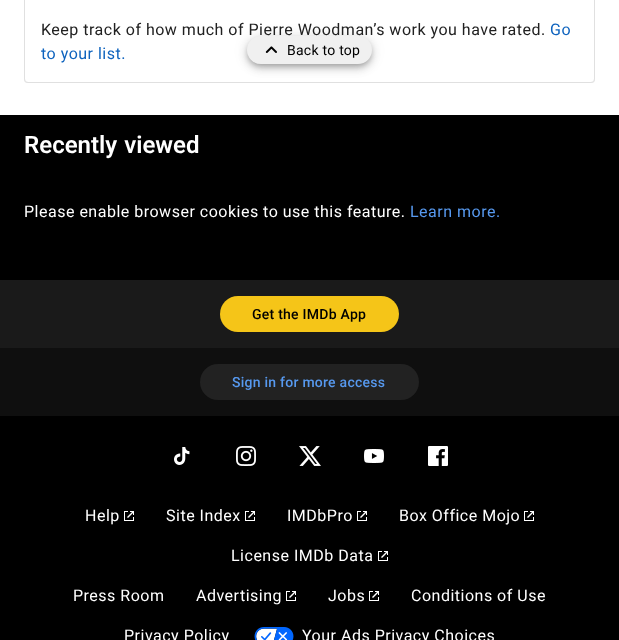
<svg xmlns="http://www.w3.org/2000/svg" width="619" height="640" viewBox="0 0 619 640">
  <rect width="100%" height="100%" fill="#000"/>
  <path d="M0 0h619v115H0z" fill="#fff"/>
  <rect x="24" y="-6" width="571" height="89" rx="4" fill="#0000001f" filter="blur(0.5px)"/>
  <rect x="24.5" y="-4.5" width="570" height="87" rx="3.5" fill="#fff" stroke="#e0e0e0"/>
  <rect x="247" y="37" width="125" height="28" rx="14" fill="#0000001f" filter="blur(7px)"/>
  <rect x="247" y="41" width="125" height="28" rx="14" fill="#00000024" filter="blur(4px)"/>
  <rect x="248" y="40" width="123" height="26" rx="13" fill="#00000033" filter="blur(2.5px)"/>
  <path d="M0 280h619v68H0z" fill="#1a1a1a"/>
  <rect x="220" y="296" width="179" height="36" rx="18" fill="#f5c518"/>
  <path d="M0 348h619v68H0z" fill="#0f0f0f"/>
  <rect x="200" y="364" width="219" height="36" rx="18" fill="#222"/>
  <image x="174" y="447" width="16" height="18" href="img/2.png"/>
  <image x="236" y="446" width="20" height="20" href="img/3.png"/>
  <image x="299" y="446" width="22" height="20" href="img/4.png"/>
  <image x="364" y="449" width="20" height="14" href="img/5.png"/>
  <image x="428" y="446" width="20" height="20" href="img/6.png"/>
  <image x="124" y="511" width="10" height="10" href="img/7.png"/>
  <image x="245" y="511" width="10" height="10" href="img/7.png"/>
  <image x="357" y="511" width="10" height="10" href="img/7.png"/>
  <image x="524" y="511" width="10" height="10" href="img/7.png"/>
  <image x="378" y="551" width="10" height="10" href="img/7.png"/>
  <image x="286" y="591" width="10" height="10" href="img/7.png"/>
  <image x="369" y="591" width="10" height="10" href="img/7.png"/>
  <image x="254" y="627" width="40" height="13" href="img/8.png"/>
  <text x="41" y="35" font-family="Roboto" font-size="16" letter-spacing="0.5" fill="#212121">Keep track of how much of Pierre Woodman’s work you have rated.</text>
  <g font-family="Roboto" font-size="16" letter-spacing="0.5" fill="#0e63be">
    <text x="550" y="35">Go</text>
    <text x="41" y="59">to your list.</text>
  </g>
  <rect x="247" y="36" width="125" height="28" rx="14" fill="#f0f0f0"/>
  <image x="265" y="46" width="12" height="7" href="img/1.png"/>
  <text x="287" y="55" font-family="Roboto" font-size="14" letter-spacing="0.25" fill="#000">Back to top</text>
  <text x="24" y="153" word-spacing="1" font-family="Roboto" font-size="24" font-weight="600" fill="#fff">Recently viewed</text>
  <text x="24" y="217" font-family="Roboto" font-size="16" letter-spacing="0.5" fill="#fff">Please enable browser cookies to use this feature.</text>
  <text x="410" y="217" font-family="Roboto" font-size="16" letter-spacing="0.5" fill="#5799ef">Learn more.</text>
  <text x="252" y="319" font-family="Roboto" font-size="14" font-weight="500" letter-spacing="0.25" fill="#000">Get the IMDb App</text>
  <text x="232" y="387" font-family="Roboto" font-size="14" font-weight="500" letter-spacing="0.25" fill="#5799ef">Sign in for more access</text>
  <g font-family="Roboto" font-size="16" letter-spacing="0.5" fill="#fff">
    <text x="85" y="521">Help</text>
    <text x="166" y="521">Site Index</text>
    <text x="287" y="521">IMDbPro</text>
    <text x="399" y="521">Box Office Mojo</text>
    <text x="231" y="561">License IMDb Data</text>
    <text x="73" y="601">Press Room</text>
    <text x="196" y="601">Advertising</text>
    <text x="328" y="601">Jobs</text>
    <text x="411" y="601">Conditions of Use</text>
    <text x="124" y="641">Privacy Policy</text>
    <text x="302" y="641">Your Ads Privacy Choices</text>
  </g>
</svg>
